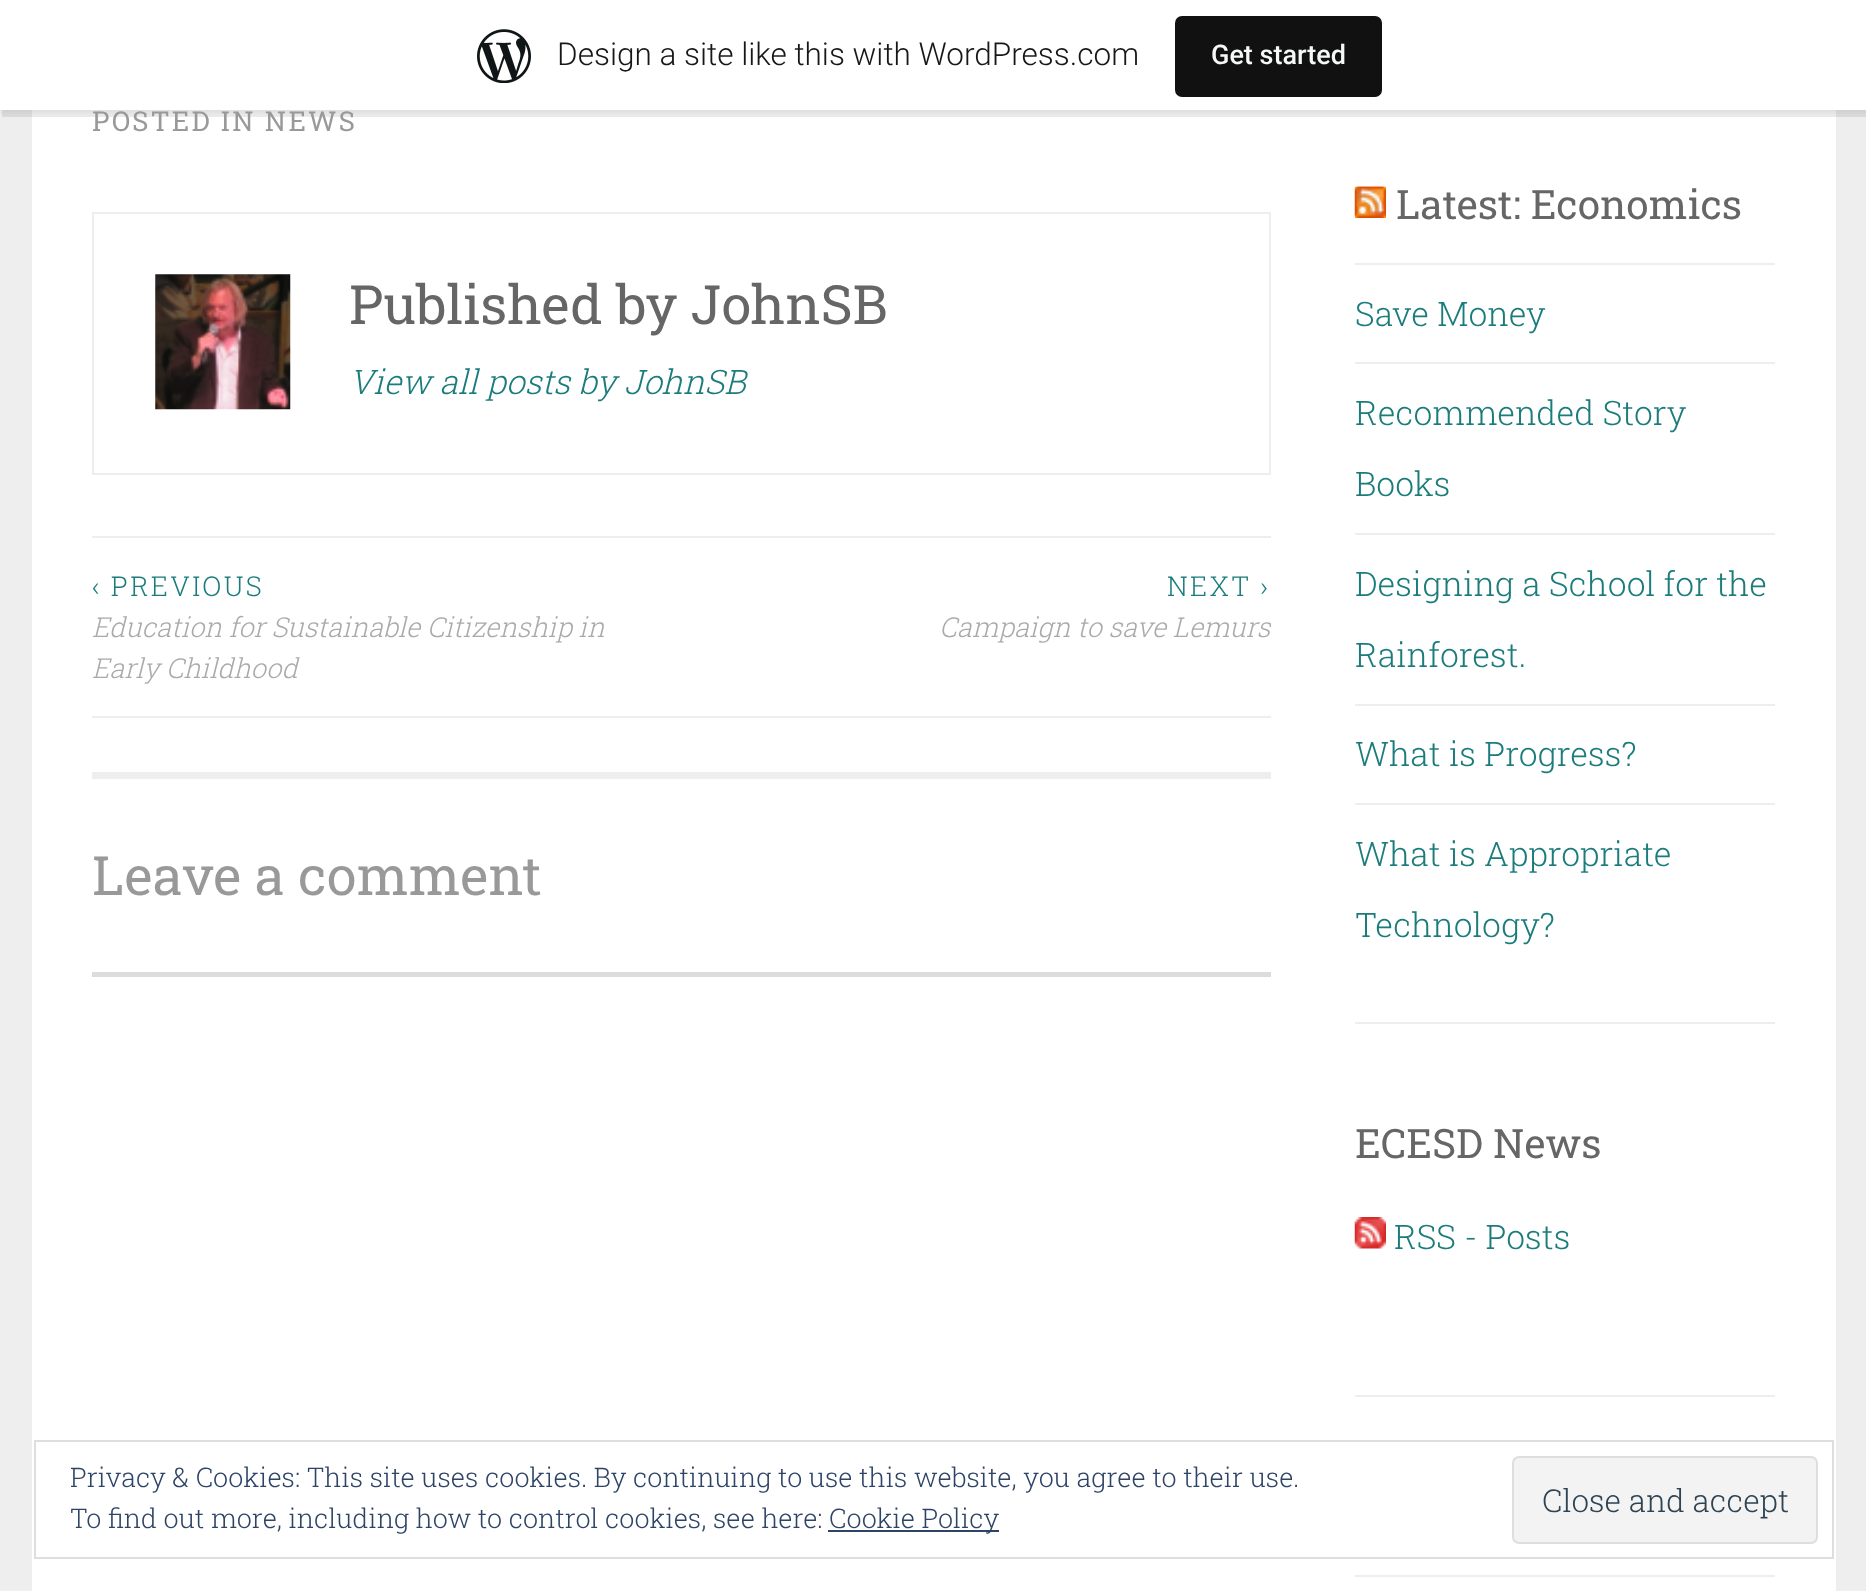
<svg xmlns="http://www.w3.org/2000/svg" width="1866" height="1591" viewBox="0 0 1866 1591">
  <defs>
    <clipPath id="clip1"><path d="M92 538h1179v178H92z"/></clipPath>
  </defs>
  <rect width="100%" height="100%" fill="#eee"/>
  <path d="M32 110h1804v1481H32z" fill="#fff"/>
  <path d="M0 2h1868v111H0z" fill="#0000000d" filter="blur(2px)"/>
  <path d="M2 110V117H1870V7H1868V110Z" fill="#00000014"/>
  <path d="M0 0h1866v110H0z" fill="#fff"/>
  <image x="477" y="29" width="54" height="54" href="img/1.png"/>
  <rect x="1175" y="16" width="207" height="81" rx="7" fill="#111"/>
  <path d="M93 213h1177v261H93z" fill="none" stroke="#eee" stroke-width="2"/>
  <image x="155" y="274" width="136" height="136" href="img/2.png"/>
  <path d="M92 536h1179v2H92z" fill="#eee"/>
  <path d="M92 716h1179v2H92z" fill="#eee"/>
  <path d="M92 772h1179v7H92z" fill="#eee"/>
  <path d="M92 972h1179v5H92z" fill="#dcdcde"/>
  <path d="M1355 1022h420v2H1355z" fill="#eee"/>
  <path d="M1355 187h31v31H1355z" fill="#ffa500"/>
  <image x="1354" y="186" width="32" height="32" href="img/3.png"/>
  <path d="M1355 263h420v2H1355z" fill="#eee"/>
  <path d="M1355 362h420v2H1355z" fill="#eee"/>
  <path d="M1355 533h420v2H1355z" fill="#eee"/>
  <path d="M1355 704h420v2H1355z" fill="#eee"/>
  <path d="M1355 803h420v2H1355z" fill="#eee"/>
  <path d="M1355 1395h420v2H1355z" fill="#eee"/>
  <image x="1354" y="1217" width="32" height="32" href="img/4.png"/>
  <path d="M1355 1575h420v2H1355z" fill="#eee"/>
  <path d="M35 1441h1798v117H35z" fill="none" stroke="#dedede" stroke-width="2"/>
  <path d="M828 1530h171v2H828z" fill="#2e4467"/>
  <rect x="1513" y="1457" width="304" height="86" rx="6" fill="#f3f3f3" stroke="#dedede" stroke-width="2"/>
  <text x="557" y="65" font-family="Roboto" font-size="31.5" font-weight="300" fill="#171717">Design a site like this with WordPress.com</text>
  <text x="1211" y="64" font-family="Roboto" font-size="27" font-weight="500" fill="#f6f7f7">Get started</text>
  <text x="92" y="131" font-family="Roboto Slab" font-size="27.4" letter-spacing="2.25" fill="#999">POSTED IN NEWS</text>
  <text x="349" y="324" font-family="Roboto Slab" font-size="54" fill="#666">Published by JohnSB</text>
  <text x="349" y="394" font-family="Roboto Slab" font-size="33.75" font-weight="300" font-style="italic" fill="#1c7c7c">View all posts by JohnSB</text>
  <text x="92" y="596" font-family="Roboto Slab" font-size="27.4" font-weight="300" letter-spacing="2.25" fill="#1c7c7c">‹ PREVIOUS</text>
  <g font-family="Roboto Slab" font-size="27.4" font-weight="300" font-style="italic" fill="#aaa">
    <text x="92" y="637">Education for Sustainable Citizenship in</text>
    <text x="92" y="678">Early Childhood</text>
  </g>
  <text x="1167" y="596" font-family="Roboto Slab" font-size="27.4" font-weight="300" letter-spacing="2.25" fill="#1c7c7c">NEXT ›</text>
  <g clip-path="url(#clip1)">
    <text x="939" y="637" font-family="Roboto Slab" font-size="27.4" font-weight="300" font-style="italic" fill="#aaa">Campaign to save Lemurs</text>
  </g>
  <text x="92" y="895" font-family="Roboto Slab" font-size="54" fill="#999">Leave a comment</text>
  <text x="1396" y="219" font-family="Roboto Slab" font-size="40.5" fill="#666">Latest: Economics</text>
  <g font-family="Roboto Slab" font-size="33.75" font-weight="300" fill="#1c7c7c">
    <text x="1355" y="326">Save Money</text>
    <text x="1355" y="425">Recommended Story</text>
    <text x="1355" y="496">Books</text>
    <text x="1355" y="596">Designing a School for the</text>
    <text x="1355" y="667">Rainforest.</text>
    <text x="1355" y="766">What is Progress?</text>
    <text x="1355" y="866">What is Appropriate</text>
    <text x="1355" y="937">Technology?</text>
  </g>
  <text x="1355" y="1158" font-family="Roboto Slab" font-size="40.5" fill="#666">ECESD News</text>
  <text x="1394" y="1249" font-family="Roboto Slab" font-size="33.75" font-weight="300" fill="#1c7c7c">RSS - Posts</text>
  <g font-family="Roboto Slab" font-size="27" font-weight="300" fill="#2e4467">
    <text x="70" y="1487">Privacy &amp; Cookies: This site uses cookies. By continuing to use this website, you agree to their use.</text>
    <text x="70" y="1528">To find out more, including how to control cookies, see here:</text>
    <text x="829" y="1528">Cookie Policy</text>
  </g>
  <text x="1542" y="1512" font-family="Roboto Slab" font-size="31.5" font-weight="300" fill="#2e4453">Close and accept</text>
</svg>
